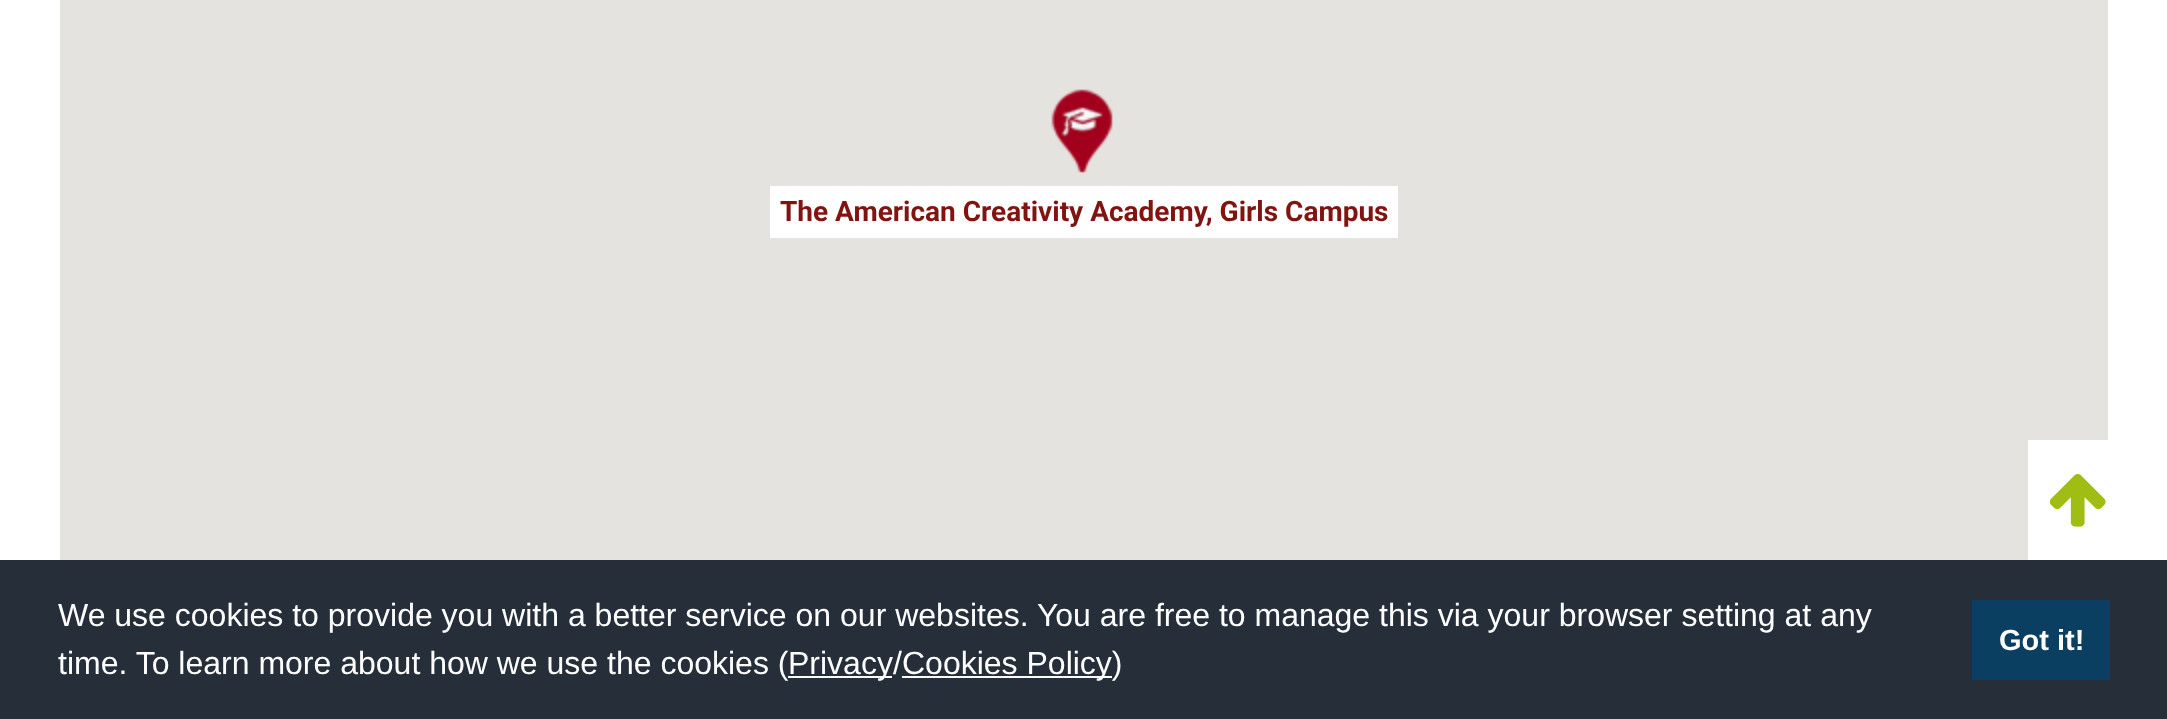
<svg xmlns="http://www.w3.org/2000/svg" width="2167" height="719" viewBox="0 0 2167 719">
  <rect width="100%" height="100%" fill="#fff"/>
  <path d="M60 0h2048v560H60z" fill="#e5e3df"/>
  <image x="1051" y="89" width="62" height="84" href="img/1.png"/>
  <path d="M770 186h628v52H770z" fill="#fff"/>
  <path d="M2028 440h80v120H2028z" fill="#fff"/>
  <image x="2049" y="474" width="57" height="53" href="img/2.png"/>
  <path d="M0 560h2167v159H0z" fill="#252e39"/>
  <path d="M788 676h104v2H788z" fill="#fff"/>
  <path d="M902 676h210v2H902z" fill="#fff"/>
  <path d="M1972 600h138v80H1972z" fill="#0a3f61"/>
  <text x="780" y="221" font-family="Roboto" font-size="28" font-weight="bold" fill="#811411">The American Creativity Academy, Girls Campus</text>
  <g font-family="Liberation Sans" font-size="32" fill="#fff">
    <text x="58" y="626">We use cookies to provide you with a better service on our websites. You are free to manage this via your browser setting at any</text>
    <text x="58" y="674">time. To learn more about how we use the cookies (</text>
    <text x="788" y="674">Privacy/</text>
    <text x="902" y="674">Cookies Policy)</text>
  </g>
  <text x="1999" y="650" font-family="Liberation Sans" font-size="29" font-weight="bold" fill="#fff">Got it!</text>
</svg>
